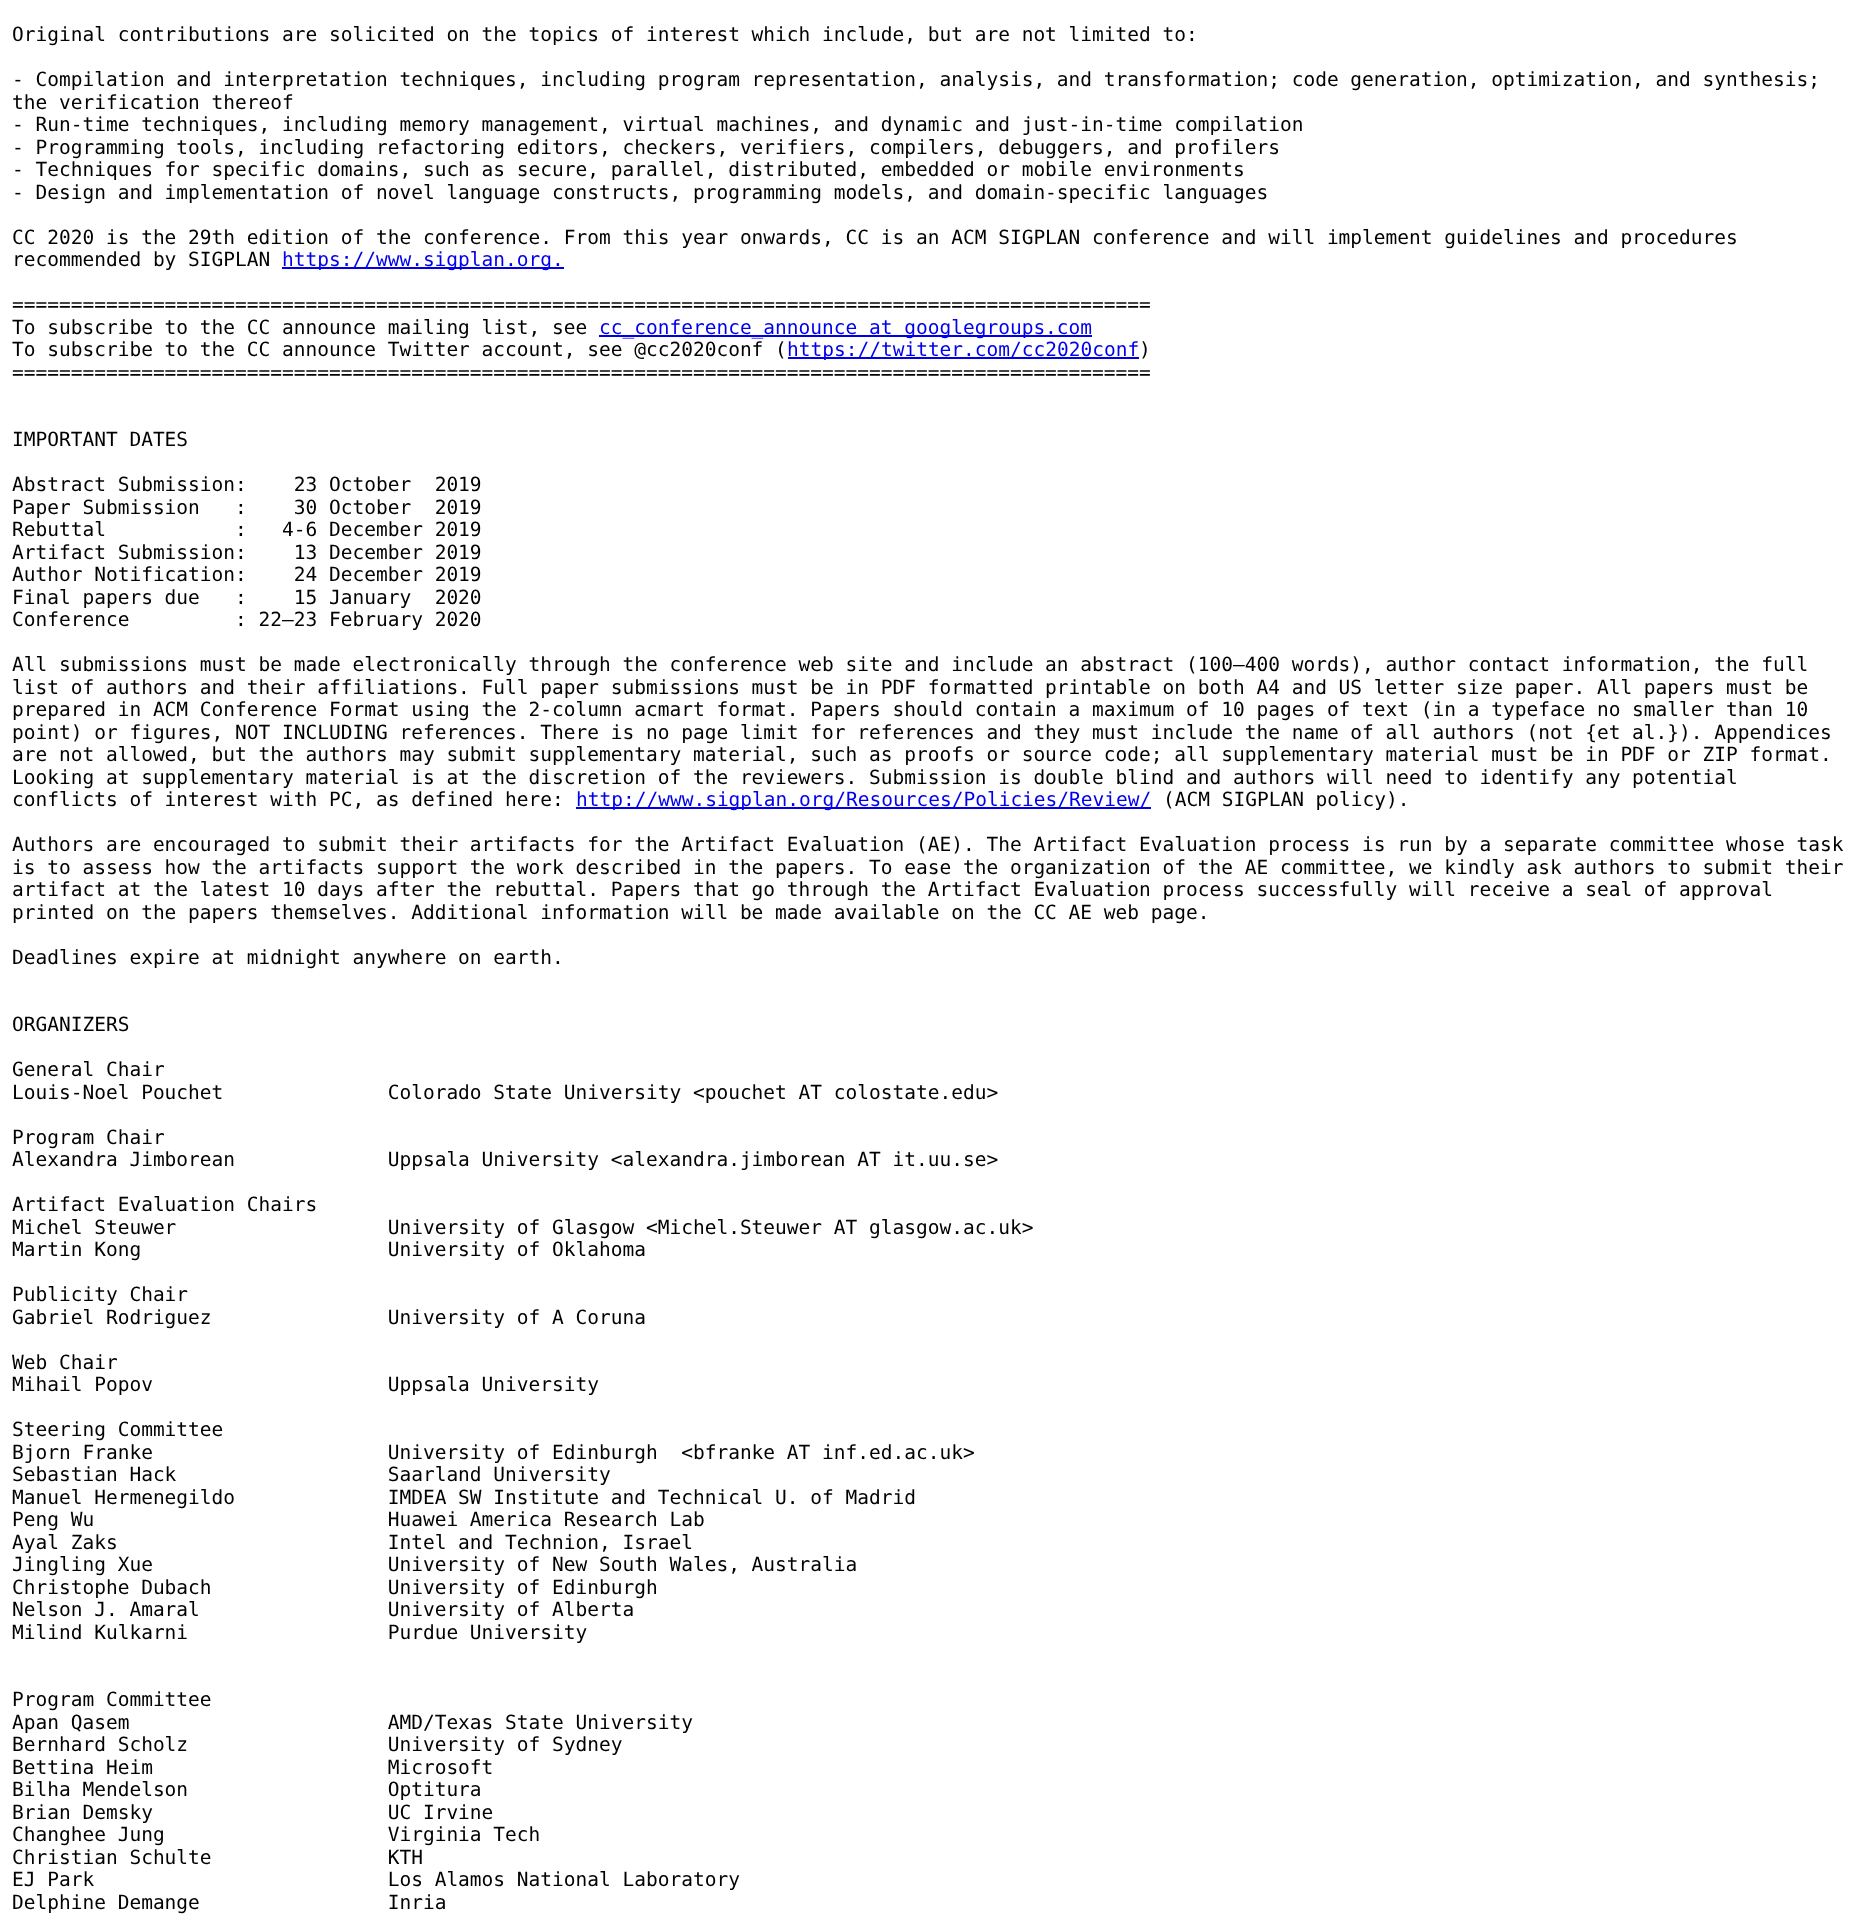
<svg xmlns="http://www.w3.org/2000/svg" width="1857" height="1927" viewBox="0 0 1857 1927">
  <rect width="100%" height="100%" fill="#fff"/>
  <path d="M282 267h282v2H282z" fill="#00e"/>
  <path d="M599 335h493v2H599z" fill="#00e"/>
  <path d="M788 357h351v2H788z" fill="#00e"/>
  <path d="M576 807h575v2H576z" fill="#00e"/>
  <g font-family="DejaVu Sans Mono" font-size="19.5" fill="#000">
    <text x="12" y="41">Original contributions are solicited on the topics of interest which include, but are not limited to:</text>
    <text x="12" y="86">- Compilation and interpretation techniques, including program representation, analysis, and transformation; code generation, optimization, and synthesis;</text>
    <text x="12" y="109">the verification thereof</text>
    <text x="12" y="131">- Run-time techniques, including memory management, virtual machines, and dynamic and just-in-time compilation</text>
    <text x="12" y="154">- Programming tools, including refactoring editors, checkers, verifiers, compilers, debuggers, and profilers</text>
    <text x="12" y="176">- Techniques for specific domains, such as secure, parallel, distributed, embedded or mobile environments</text>
    <text x="12" y="199">- Design and implementation of novel language constructs, programming models, and domain-specific languages</text>
    <text x="12" y="244">CC 2020 is the 29th edition of the conference. From this year onwards, CC is an ACM SIGPLAN conference and will implement guidelines and procedures</text>
    <text x="12" y="266">recommended by SIGPLAN</text>
  </g>
  <text x="282" y="266" font-family="DejaVu Sans Mono" font-size="19.5" fill="#00e">https://www.sigplan.org.</text>
  <g font-family="DejaVu Sans Mono" font-size="19.5" fill="#000">
    <text x="12" y="311">=================================================================================================</text>
    <text x="12" y="334">To subscribe to the CC announce mailing list, see</text>
  </g>
  <text x="599" y="334" font-family="DejaVu Sans Mono" font-size="19.5" fill="#00e">cc_conference_announce at googlegroups.com</text>
  <text x="12" y="356" font-family="DejaVu Sans Mono" font-size="19.5" fill="#000">To subscribe to the CC announce Twitter account, see @cc2020conf (</text>
  <text x="787" y="356" font-family="DejaVu Sans Mono" font-size="19.5" fill="#00e">https://twitter.com/cc2020conf</text>
  <g font-family="DejaVu Sans Mono" font-size="19.5" fill="#000">
    <text x="1139" y="356">)</text>
    <text x="12" y="379">=================================================================================================</text>
    <text x="12" y="446">IMPORTANT DATES</text>
    <text x="12" y="491" xml:space="preserve">Abstract Submission:    23 October  2019</text>
    <text x="12" y="514" xml:space="preserve">Paper Submission   :    30 October  2019</text>
    <text x="12" y="536" xml:space="preserve">Rebuttal           :   4-6 December 2019</text>
    <text x="12" y="559" xml:space="preserve">Artifact Submission:    13 December 2019</text>
    <text x="12" y="581" xml:space="preserve">Author Notification:    24 December 2019</text>
    <text x="12" y="604" xml:space="preserve">Final papers due   :    15 January  2020</text>
    <text x="12" y="626" xml:space="preserve">Conference         : 22–23 February 2020</text>
    <text x="12" y="671">All submissions must be made electronically through the conference web site and include an abstract (100–400 words), author contact information, the full</text>
    <text x="12" y="694">list of authors and their affiliations. Full paper submissions must be in PDF formatted printable on both A4 and US letter size paper. All papers must be</text>
    <text x="12" y="716">prepared in ACM Conference Format using the 2-column acmart format. Papers should contain a maximum of 10 pages of text (in a typeface no smaller than 10</text>
    <text x="12" y="739">point) or figures, NOT INCLUDING references. There is no page limit for references and they must include the name of all authors (not {et al.}). Appendices</text>
    <text x="12" y="761">are not allowed, but the authors may submit supplementary material, such as proofs or source code; all supplementary material must be in PDF or ZIP format.</text>
    <text x="12" y="784">Looking at supplementary material is at the discretion of the reviewers. Submission is double blind and authors will need to identify any potential</text>
    <text x="12" y="806">conflicts of interest with PC, as defined here:</text>
  </g>
  <text x="576" y="806" font-family="DejaVu Sans Mono" font-size="19.5" fill="#00e">http://www.sigplan.org/Resources/Policies/Review/</text>
  <g font-family="DejaVu Sans Mono" font-size="19.5" fill="#000">
    <text x="1163" y="806">(ACM SIGPLAN policy).</text>
    <text x="12" y="851">Authors are encouraged to submit their artifacts for the Artifact Evaluation (AE). The Artifact Evaluation process is run by a separate committee whose task</text>
    <text x="12" y="874">is to assess how the artifacts support the work described in the papers. To ease the organization of the AE committee, we kindly ask authors to submit their</text>
    <text x="12" y="896">artifact at the latest 10 days after the rebuttal. Papers that go through the Artifact Evaluation process successfully will receive a seal of approval</text>
    <text x="12" y="919">printed on the papers themselves. Additional information will be made available on the CC AE web page.</text>
    <text x="12" y="964">Deadlines expire at midnight anywhere on earth.</text>
    <text x="12" y="1031">ORGANIZERS</text>
    <text x="12" y="1076">General Chair</text>
    <text x="12" y="1099" xml:space="preserve">Louis-Noel Pouchet              Colorado State University &lt;pouchet AT colostate.edu&gt;</text>
    <text x="12" y="1144">Program Chair</text>
    <text x="12" y="1166" xml:space="preserve">Alexandra Jimborean             Uppsala University &lt;alexandra.jimborean AT it.uu.se&gt;</text>
    <text x="12" y="1211">Artifact Evaluation Chairs</text>
    <text x="12" y="1234" xml:space="preserve">Michel Steuwer                  University of Glasgow &lt;Michel.Steuwer AT glasgow.ac.uk&gt;</text>
    <text x="12" y="1256" xml:space="preserve">Martin Kong                     University of Oklahoma</text>
    <text x="12" y="1301">Publicity Chair</text>
    <text x="12" y="1324" xml:space="preserve">Gabriel Rodriguez               University of A Coruna</text>
    <text x="12" y="1369">Web Chair</text>
    <text x="12" y="1391" xml:space="preserve">Mihail Popov                    Uppsala University</text>
    <text x="12" y="1436">Steering Committee</text>
    <text x="12" y="1459" xml:space="preserve">Bjorn Franke                    University of Edinburgh  &lt;bfranke AT inf.ed.ac.uk&gt;</text>
    <text x="12" y="1481" xml:space="preserve">Sebastian Hack                  Saarland University</text>
    <text x="12" y="1504" xml:space="preserve">Manuel Hermenegildo             IMDEA SW Institute and Technical U. of Madrid</text>
    <text x="12" y="1526" xml:space="preserve">Peng Wu                         Huawei America Research Lab</text>
    <text x="12" y="1549" xml:space="preserve">Ayal Zaks                       Intel and Technion, Israel</text>
    <text x="12" y="1571" xml:space="preserve">Jingling Xue                    University of New South Wales, Australia</text>
    <text x="12" y="1594" xml:space="preserve">Christophe Dubach               University of Edinburgh</text>
    <text x="12" y="1616" xml:space="preserve">Nelson J. Amaral                University of Alberta</text>
    <text x="12" y="1639" xml:space="preserve">Milind Kulkarni                 Purdue University</text>
    <text x="12" y="1706">Program Committee</text>
    <text x="12" y="1729" xml:space="preserve">Apan Qasem                      AMD/Texas State University</text>
    <text x="12" y="1751" xml:space="preserve">Bernhard Scholz                 University of Sydney</text>
    <text x="12" y="1774" xml:space="preserve">Bettina Heim                    Microsoft</text>
    <text x="12" y="1796" xml:space="preserve">Bilha Mendelson                 Optitura</text>
    <text x="12" y="1819" xml:space="preserve">Brian Demsky                    UC Irvine</text>
    <text x="12" y="1841" xml:space="preserve">Changhee Jung                   Virginia Tech</text>
    <text x="12" y="1864" xml:space="preserve">Christian Schulte               KTH</text>
    <text x="12" y="1886" xml:space="preserve">EJ Park                         Los Alamos National Laboratory</text>
    <text x="12" y="1909" xml:space="preserve">Delphine Demange                Inria</text>
  </g>
</svg>
